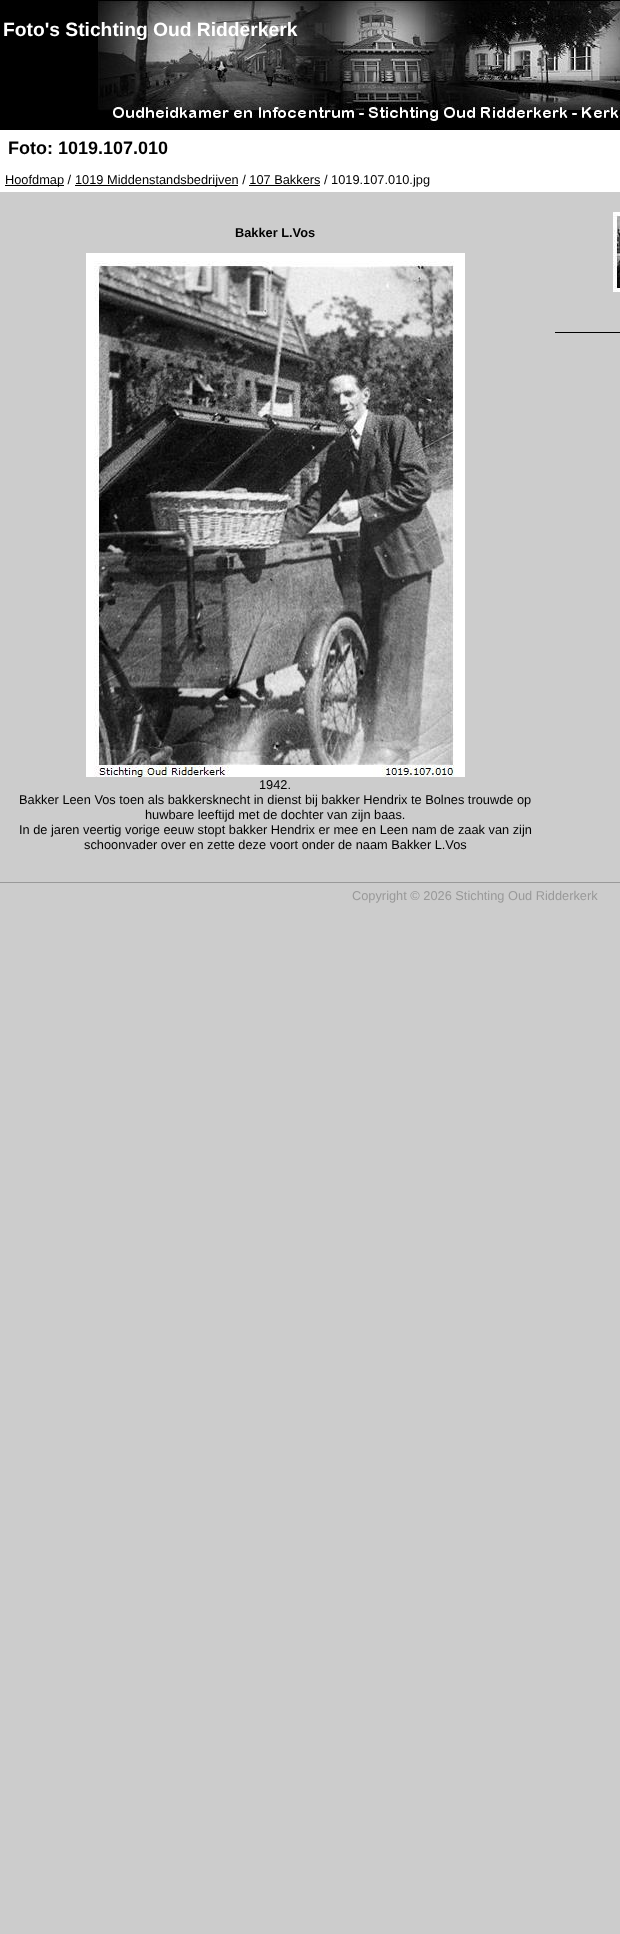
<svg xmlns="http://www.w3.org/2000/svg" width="620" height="1934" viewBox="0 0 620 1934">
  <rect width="100%" height="100%" fill="#ccc"/>
  <image x="0" y="0" width="620" height="130" href="img/1.png"/>
  <path d="M0 130h620v62H0z" fill="#fff"/>
  <path d="M5 185h59v1H5z" fill="#000"/>
  <path d="M75 185h163v1H75z" fill="#000"/>
  <path d="M249 185h71v1H249z" fill="#000"/>
  <image x="86" y="253" width="379" height="524" href="img/2.png"/>
  <image x="613" y="212" width="7" height="80" href="img/3.png"/>
  <path d="M555 332h65v1H555z" fill="#000"/>
  <path d="M0 882h620v1H0z" fill="#999"/>
  <text x="3" y="36" font-family="Liberation Sans" font-size="19.25" font-weight="bold" fill="#fff">Foto's Stichting Oud Ridderkerk</text>
  <text x="8" y="154" font-family="Liberation Sans" font-size="18" font-weight="bold" fill="#000">Foto: 1019.107.010</text>
  <g font-family="Liberation Sans" font-size="12.8" fill="#000">
    <text x="5" y="184">Hoofdmap /</text>
    <text x="75" y="184">1019 Middenstandsbedrijven / 107 Bakkers / 1019.107.010.jpg</text>
  </g>
  <text x="235" y="237" font-family="Liberation Sans" font-size="12.8" font-weight="bold" fill="#000">Bakker L.Vos</text>
  <g font-family="Liberation Sans" font-size="12.8" fill="#000">
    <text x="259" y="789">1942.</text>
    <text x="19" y="804">Bakker Leen Vos toen als bakkersknecht in dienst bij bakker Hendrix te Bolnes trouwde op</text>
    <text x="145" y="819">huwbare leeftijd met de dochter van zijn baas.</text>
    <text x="19" y="834">In de jaren veertig vorige eeuw stopt bakker Hendrix er mee en Leen nam de zaak van zijn</text>
    <text x="84" y="849">schoonvader over en zette deze voort onder de naam Bakker L.Vos</text>
  </g>
  <text x="352" y="900" font-family="Liberation Sans" font-size="12.8" fill="#999">Copyright © 2026 Stichting Oud Ridderkerk</text>
</svg>
